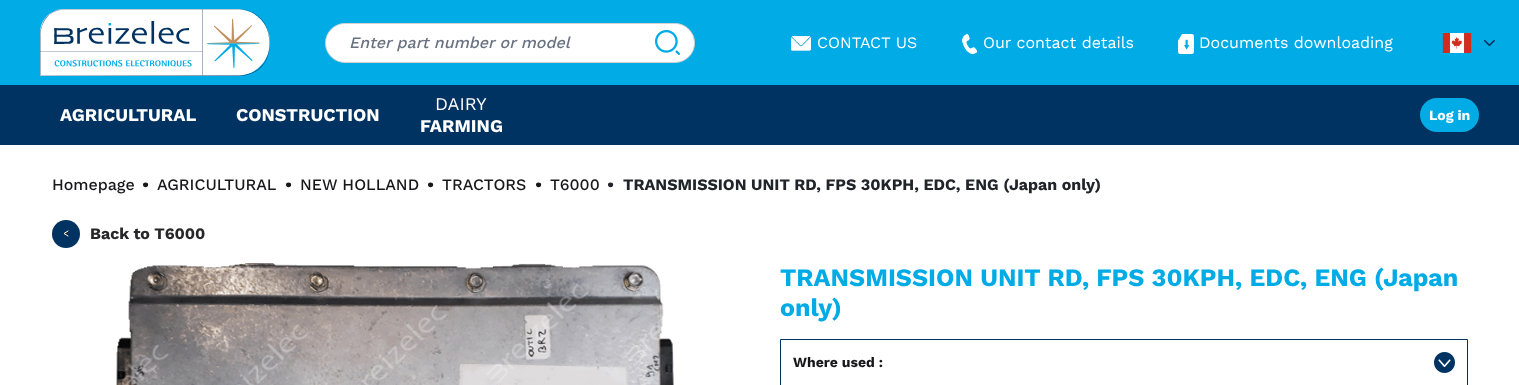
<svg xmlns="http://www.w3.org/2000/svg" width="1519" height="385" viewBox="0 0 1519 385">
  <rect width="100%" height="100%" fill="#fff"/>
  <path d="M0 0h1519v85H0z" fill="#00abe6"/>
  <image x="40" y="9" width="230" height="67" href="img/1.png"/>
  <rect x="325.5" y="23.5" width="369" height="39" rx="19.5" fill="#fff" stroke="#d1d1d1"/>
  <image x="655" y="30" width="25" height="25" href="img/2.png"/>
  <image x="791" y="36" width="20" height="15" href="img/3.png"/>
  <image x="962" y="34" width="15" height="20" href="img/4.png"/>
  <image x="1178" y="34" width="16" height="20" href="img/5.png"/>
  <image x="1442" y="33" width="30" height="20" href="img/6.png"/>
  <image x="1484" y="39" width="11" height="8" href="img/7.png"/>
  <path d="M0 85h1519v60H0z" fill="#003361"/>
  <rect x="1420" y="98" width="59" height="34" rx="17" fill="#00abe6"/>
  <circle cx="66" cy="234" r="14" fill="#003361"/>
  <path d="M68 231L64 233.5L68 236" fill="#27272a" fill-rule="evenodd" stroke="#fff" stroke-linecap="round" stroke-linejoin="round"/>
  <image x="116" y="263" width="558" height="122" href="img/8.png"/>
  <path d="M780.5 339.5h687v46H780.5z" fill="none" stroke="#003361"/>
  <image x="1434" y="352" width="21" height="21" href="img/9.png"/>
  <text x="349" y="48" font-family="Work Sans" font-size="16" font-weight="500" font-style="italic" fill="#6a7282">Enter part number or model</text>
  <g font-family="Work Sans" font-size="16" fill="#fff">
    <text x="817" y="48">CONTACT US</text>
    <text x="983" y="48">Our contact details</text>
    <text x="1199" y="48">Documents downloading</text>
  </g>
  <g font-family="Work Sans" font-size="18" font-weight="bold" fill="#fff">
    <text x="60" y="121">AGRICULTURAL</text>
    <text x="236" y="121">CONSTRUCTION</text>
  </g>
  <text x="435" y="110" font-family="Work Sans" font-size="18" fill="#fff">DAIRY</text>
  <text x="420" y="132" font-family="Work Sans" font-size="18" font-weight="bold" fill="#fff">FARMING</text>
  <text x="1429" y="120" font-family="Work Sans" font-size="14" font-weight="bold" fill="#fff">Log in</text>
  <text x="52" y="190" font-family="Work Sans" font-size="16" font-weight="500" fill="#18181b">Homepage</text>
  <text x="142" y="194" font-family="Work Sans" font-size="26" font-weight="bold" fill="#18181b">·</text>
  <text x="157" y="190" font-family="Work Sans" font-size="16" font-weight="500" fill="#18181b">AGRICULTURAL</text>
  <text x="285" y="194" font-family="Work Sans" font-size="26" font-weight="bold" fill="#18181b">·</text>
  <text x="300" y="190" font-family="Work Sans" font-size="16" font-weight="500" fill="#18181b">NEW HOLLAND</text>
  <text x="427" y="194" font-family="Work Sans" font-size="26" font-weight="bold" fill="#18181b">·</text>
  <text x="442" y="190" font-family="Work Sans" font-size="16" font-weight="500" fill="#18181b">TRACTORS</text>
  <text x="535" y="194" font-family="Work Sans" font-size="26" font-weight="bold" fill="#18181b">·</text>
  <text x="550" y="190" font-family="Work Sans" font-size="16" font-weight="500" fill="#18181b">T6000</text>
  <text x="607" y="194" font-family="Work Sans" font-size="26" font-weight="bold" fill="#212529">·</text>
  <text x="623" y="190" font-family="Work Sans" font-size="16" font-weight="bold" fill="#212529">TRANSMISSION UNIT RD, FPS 30KPH, EDC, ENG (Japan only)</text>
  <text x="90" y="239" font-family="Work Sans" font-size="16" font-weight="bold" fill="#27272a">Back to T6000</text>
  <g font-family="Work Sans" font-size="25" font-weight="bold" fill="#00abe6">
    <text x="780" y="286">TRANSMISSION UNIT RD, FPS 30KPH, EDC, ENG (Japan</text>
    <text x="780" y="316">only)</text>
  </g>
  <text x="793" y="367" font-family="Work Sans" font-size="14" font-weight="bold" fill="#18181b">Where used :</text>
</svg>
